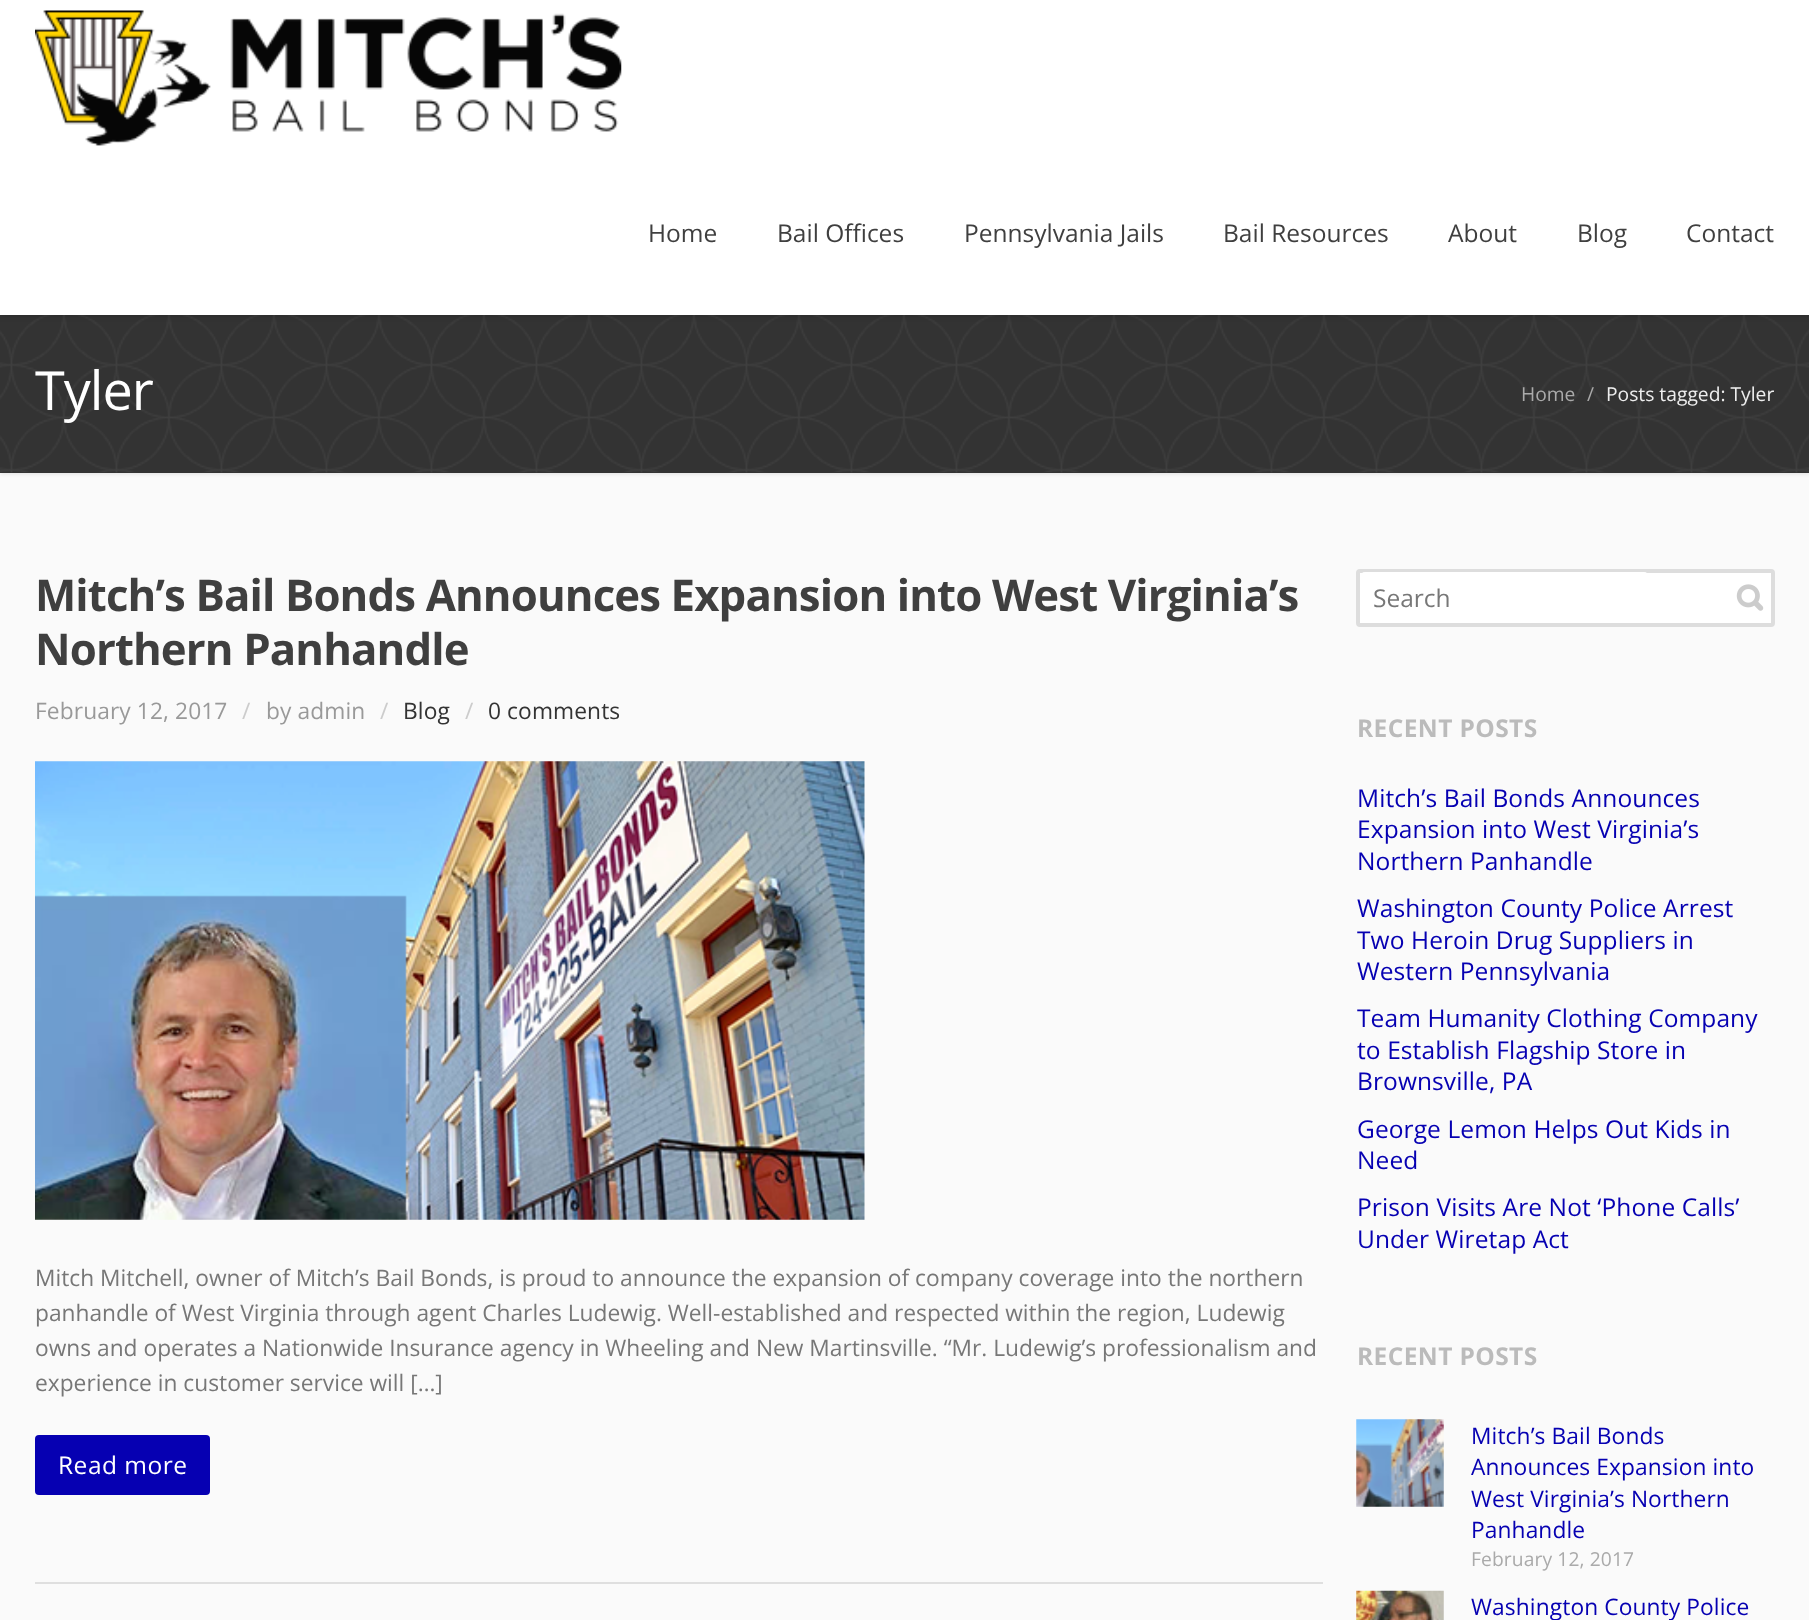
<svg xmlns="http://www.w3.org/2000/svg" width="1809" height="1620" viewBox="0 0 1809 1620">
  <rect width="100%" height="100%" fill="#fafafa"/>
  <path d="M0 317h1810v157H0z" fill="#0000001a" filter="blur(2px)"/>
  <path d="M0 315h1809v158H0z" fill="#333"/>
  <image x="0" y="315" width="1809" height="158" href="img/2.png"/>
  <path d="M0 2h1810v315H0z" fill="#00000024" filter="blur(2.5px)"/>
  <path d="M0 0h1809v315H0z" fill="#fff"/>
  <image x="35" y="10" width="587" height="136" href="img/1.png"/>
  <path d="M35 1582h1288v2H35z" fill="#dfdfdf"/>
  <image x="35" y="761" width="830" height="459" href="img/3.png"/>
  <rect x="35" y="1435" width="175" height="60" rx="4" fill="#0600b2"/>
  <rect x="1358" y="571" width="415" height="54" rx="2" fill="#fff" stroke="#ddd" stroke-width="4"/>
  <rect x="1360" y="572" width="289" height="51" rx="5" fill="#fff"/>
  <image x="1736" y="584" width="28" height="27" href="img/4.png"/>
  <image x="1356" y="1419" width="88" height="88" href="img/5.png"/>
  <image x="1356" y="1590" width="88" height="30" href="img/6.png"/>
  <g font-family="Open Sans" font-size="24.5" fill="#3f3f3f">
    <text x="648" y="242">Home</text>
    <text x="777" y="242">Bail Offices</text>
    <text x="964" y="242">Pennsylvania Jails</text>
    <text x="1223" y="242">Bail Resources</text>
    <text x="1448" y="242">About</text>
    <text x="1577" y="242">Blog</text>
    <text x="1686" y="242">Contact</text>
  </g>
  <text x="35" y="410" font-family="Open Sans" font-size="54" letter-spacing="-1" fill="#fff">Tyler</text>
  <g font-family="Open Sans" font-size="19.25" fill="#aaa">
    <text x="1521" y="401">Home</text>
    <text x="1587" y="401">/</text>
  </g>
  <text x="1606" y="401" font-family="Open Sans" font-size="19.25" fill="#eee">Posts tagged: Tyler</text>
  <g font-family="Open Sans" font-size="43.75" font-weight="bold" letter-spacing="-0.88" fill="#3f3f3f">
    <text x="35" y="611">Mitch’s Bail Bonds Announces Expansion into West Virginia’s</text>
    <text x="35" y="665">Northern Panhandle</text>
  </g>
  <text x="35" y="719" font-family="Open Sans" font-size="22.75" letter-spacing="0.1" fill="#999">February 12, 2017</text>
  <text x="242" y="719" font-family="Open Sans" font-size="22.75" letter-spacing="0.1" fill="#ccc">/</text>
  <text x="266" y="719" font-family="Open Sans" font-size="22.75" letter-spacing="0.1" fill="#999">by admin</text>
  <text x="380" y="719" font-family="Open Sans" font-size="22.75" letter-spacing="0.1" fill="#ccc">/</text>
  <text x="403" y="719" font-family="Open Sans" font-size="22.75" letter-spacing="0.1" fill="#333">Blog</text>
  <text x="465" y="719" font-family="Open Sans" font-size="22.75" letter-spacing="0.1" fill="#ccc">/</text>
  <text x="488" y="719" font-family="Open Sans" font-size="22.75" letter-spacing="0.1" fill="#333">0 comments</text>
  <g font-family="Open Sans" font-size="22.75" fill="#777">
    <text x="35" y="1286">Mitch Mitchell, owner of Mitch’s Bail Bonds, is proud to announce the expansion of company coverage into the northern</text>
    <text x="35" y="1321">panhandle of West Virginia through agent Charles Ludewig. Well-established and respected within the region, Ludewig</text>
    <text x="35" y="1356">owns and operates a Nationwide Insurance agency in Wheeling and New Martinsville. “Mr. Ludewig’s professionalism and</text>
    <text x="35" y="1391">experience in customer service will […]</text>
  </g>
  <text x="58" y="1474" font-family="Open Sans" font-size="24.5" letter-spacing="0.5" fill="#fff">Read more</text>
  <text x="1373" y="607" font-family="Open Sans" font-size="24.5" fill="#777">Search</text>
  <text x="1357" y="737" font-family="Open Sans" font-size="24.5" font-weight="bold" letter-spacing="0.4" fill="#bbb">RECENT POSTS</text>
  <g font-family="Open Sans" font-size="24.5" letter-spacing="0.1" fill="#0600b2">
    <text x="1357" y="807">Mitch’s Bail Bonds Announces</text>
    <text x="1357" y="838">Expansion into West Virginia’s</text>
    <text x="1357" y="870">Northern Panhandle</text>
    <text x="1357" y="917">Washington County Police Arrest</text>
    <text x="1357" y="949">Two Heroin Drug Suppliers in</text>
    <text x="1357" y="980">Western Pennsylvania</text>
    <text x="1357" y="1027">Team Humanity Clothing Company</text>
    <text x="1357" y="1059">to Establish Flagship Store in</text>
    <text x="1357" y="1090">Brownsville, PA</text>
    <text x="1357" y="1138">George Lemon Helps Out Kids in</text>
    <text x="1357" y="1169">Need</text>
    <text x="1357" y="1216">Prison Visits Are Not ‘Phone Calls’</text>
    <text x="1357" y="1248">Under Wiretap Act</text>
  </g>
  <text x="1357" y="1365" font-family="Open Sans" font-size="24.5" font-weight="bold" letter-spacing="0.4" fill="#bbb">RECENT POSTS</text>
  <g font-family="Open Sans" font-size="22.75" letter-spacing="0.1" fill="#0600b2">
    <text x="1471" y="1444">Mitch’s Bail Bonds</text>
    <text x="1471" y="1475">Announces Expansion into</text>
    <text x="1471" y="1507">West Virginia’s Northern</text>
    <text x="1471" y="1538">Panhandle</text>
  </g>
  <text x="1471" y="1566" font-family="Open Sans" font-size="19.25" letter-spacing="0.1" fill="#aaa">February 12, 2017</text>
  <text x="1471" y="1615" font-family="Open Sans" font-size="22.75" letter-spacing="0.1" fill="#0600b2">Washington County Police</text>
</svg>
